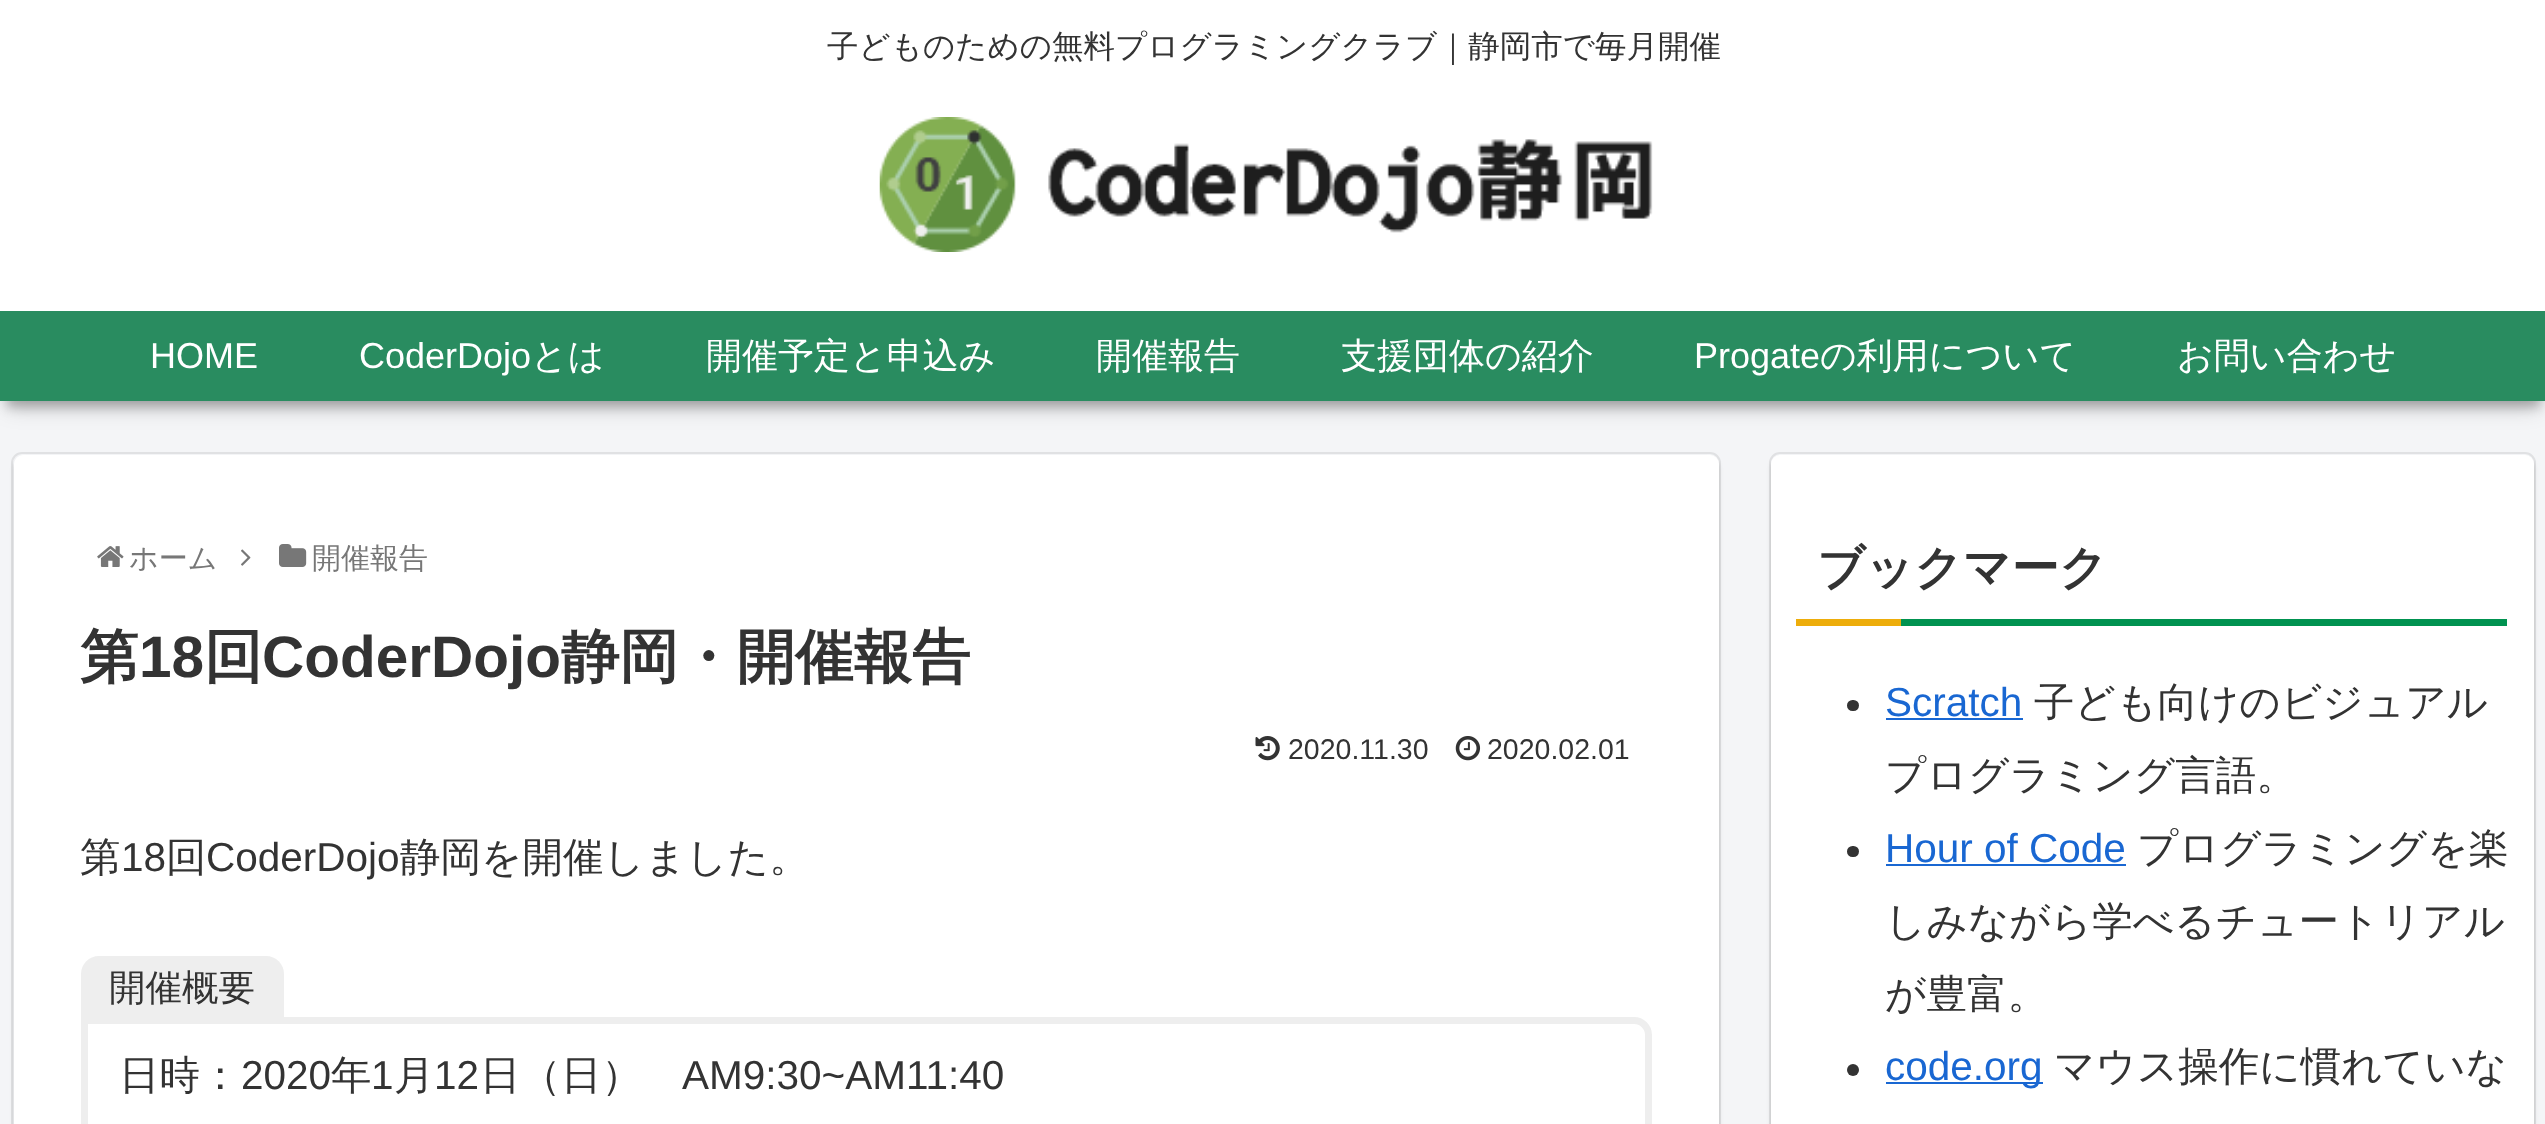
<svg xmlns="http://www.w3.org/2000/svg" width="2545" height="1124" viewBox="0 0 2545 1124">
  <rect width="100%" height="100%" fill="#f4f5f7"/>
  <path d="M7 20h2533v387H7z" fill="#0000002e" filter="blur(11px)"/>
  <path d="M7 20h2533v387H7z" fill="#0000003d" filter="blur(5.5px)"/>
  <path d="M0 0h2545v311H0z" fill="#fff"/>
  <image x="879" y="117" width="774" height="135" href="img/1.png"/>
  <path d="M0 311h2545v90H0z" fill="#298c60"/>
  <rect x="12" y="453" width="1708" height="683" rx="10" fill="none" stroke="#e0e1e3" stroke-width="2"/>
  <rect x="14" y="459" width="1705" height="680" rx="9" fill="#00000029" filter="blur(2px)"/>
  <rect x="14" y="455" width="1705" height="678" rx="9" fill="#fff"/>
  <image x="97" y="546" width="27" height="21" href="img/2.png"/>
  <image x="241" y="549" width="10" height="17" href="img/3.png"/>
  <image x="279" y="544" width="28" height="23" href="img/4.png"/>
  <image x="1255" y="736" width="25" height="25" href="img/5.png"/>
  <image x="1455" y="736" width="26" height="25" href="img/6.png"/>
  <path d="M84.5 1020.5H1634C1642 1020.5 1648.5 1027 1648.5 1035V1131C1648.5 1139 1642 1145.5 1634 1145.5H99C91 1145.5 84.5 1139 84.5 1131Z" fill="none" stroke="#eee" stroke-width="7"/>
  <path d="M99 956H266C276 956 284 964 284 974V1022H81V974C81 964 89 956 99 956Z" fill="#eee"/>
  <rect x="1770" y="453" width="765" height="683" rx="10" fill="none" stroke="#e0e1e3" stroke-width="2"/>
  <rect x="1771" y="459" width="763" height="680" rx="9" fill="#00000029" filter="blur(2px)"/>
  <rect x="1771" y="455" width="763" height="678" rx="9" fill="#fff"/>
  <path d="M1901 619h606v7H1901z" fill="#009250"/>
  <path d="M1796 619h105v7H1796z" fill="#edad0b"/>
  <rect x="1847" y="700" width="12" height="11" rx="5.5" fill="#333"/>
  <path d="M1886 718h137v2H1886z" fill="#1967d2"/>
  <rect x="1847" y="846" width="12" height="11" rx="5.5" fill="#333"/>
  <path d="M1886 864h240v2H1886z" fill="#1967d2"/>
  <circle cx="1853" cy="1070" r="6" fill="#333"/>
  <path d="M1886 1082h157v2H1886z" fill="#1967d2"/>
  <text x="827" y="57" font-family="WenQuanYi Zen Hei" font-size="31.5" font-weight="500" fill="#333">子どものための無料プログラミングクラブ｜静岡市で毎月開催</text>
  <g font-family="Liberation Sans" font-size="36" fill="#fff">
    <text x="150" y="368">HOME</text>
    <text x="359" y="368">CoderDojo</text>
  </g>
  <g font-family="WenQuanYi Zen Hei" font-size="36" font-weight="500" fill="#fff">
    <text x="531" y="368">とは</text>
    <text x="706" y="368">開催予定と申込み</text>
    <text x="1096" y="368">開催報告</text>
    <text x="1341" y="368">支援団体の紹介</text>
  </g>
  <text x="1694" y="368" font-family="Liberation Sans" font-size="36" fill="#fff">Progate</text>
  <g font-family="WenQuanYi Zen Hei" font-size="36" font-weight="500" fill="#fff">
    <text x="1820" y="368">の利用について</text>
    <text x="2177" y="368">お問い合わせ</text>
  </g>
  <g font-family="WenQuanYi Zen Hei" font-size="29" font-weight="500" fill="#777">
    <text x="129" y="568">ホーム</text>
    <text x="312" y="568">開催報告</text>
  </g>
  <text x="80" y="677" font-family="WenQuanYi Zen Hei" font-size="58.5" font-weight="bold" fill="#333">第</text>
  <text x="139" y="677" font-family="Liberation Sans" font-size="58.5" font-weight="bold" fill="#333">18</text>
  <text x="204" y="677" font-family="WenQuanYi Zen Hei" font-size="58.5" font-weight="bold" fill="#333">回</text>
  <text x="262" y="677" font-family="Liberation Sans" font-size="58.5" font-weight="bold" fill="#333">CoderDojo</text>
  <text x="561" y="677" font-family="WenQuanYi Zen Hei" font-size="58.5" font-weight="bold" fill="#333">静岡・開催報告</text>
  <g font-family="Liberation Sans" font-size="28.5" fill="#333">
    <text x="1288" y="759">2020.11.30</text>
    <text x="1487" y="759">2020.02.01</text>
  </g>
  <text x="80" y="871" font-family="WenQuanYi Zen Hei" font-size="40.5" font-weight="500" fill="#333">第</text>
  <text x="121" y="871" font-family="Liberation Sans" font-size="40.5" fill="#333">18</text>
  <text x="166" y="871" font-family="WenQuanYi Zen Hei" font-size="40.5" font-weight="500" fill="#333">回</text>
  <text x="206" y="871" font-family="Liberation Sans" font-size="40.5" fill="#333">CoderDojo</text>
  <text x="400" y="871" font-family="WenQuanYi Zen Hei" font-size="40.5" font-weight="500" fill="#333">静岡を開催しました。</text>
  <text x="109" y="1000" font-family="WenQuanYi Zen Hei" font-size="36.5" font-weight="500" fill="#333">開催概要</text>
  <text x="119" y="1089" font-family="WenQuanYi Zen Hei" font-size="40.5" font-weight="500" fill="#333">日時：</text>
  <text x="241" y="1089" font-family="Liberation Sans" font-size="40.5" fill="#333">2020</text>
  <text x="331" y="1089" font-family="WenQuanYi Zen Hei" font-size="40.5" font-weight="500" fill="#333">年</text>
  <text x="371" y="1089" font-family="Liberation Sans" font-size="40.5" fill="#333">1</text>
  <text x="394" y="1089" font-family="WenQuanYi Zen Hei" font-size="40.5" font-weight="500" fill="#333">月</text>
  <text x="434" y="1089" font-family="Liberation Sans" font-size="40.5" fill="#333">12</text>
  <text x="480" y="1089" font-family="WenQuanYi Zen Hei" font-size="40.5" font-weight="500" fill="#333">日（日）</text>
  <text x="682" y="1089" font-family="Liberation Sans" font-size="40.5" fill="#333">AM9:30~AM11:40</text>
  <text x="1817" y="584" font-family="WenQuanYi Zen Hei" font-size="47.5" font-weight="bold" fill="#333">ブックマーク</text>
  <text x="1885" y="716" font-family="Liberation Sans" font-size="40.5" fill="#1967d2">Scratch</text>
  <g font-family="WenQuanYi Zen Hei" font-size="40.5" font-weight="500" fill="#333">
    <text x="2034" y="716">子ども向けのビジュアル</text>
    <text x="1885" y="789">プログラミング言語。</text>
  </g>
  <text x="1885" y="862" font-family="Liberation Sans" font-size="40.5" fill="#1967d2">Hour of Code</text>
  <g font-family="WenQuanYi Zen Hei" font-size="40.5" font-weight="500" fill="#333">
    <text x="2137" y="862">プログラミングを楽</text>
    <text x="1885" y="935">しみながら学べるチュートリアル</text>
    <text x="1885" y="1008">が豊富。</text>
  </g>
  <text x="1885" y="1080" font-family="Liberation Sans" font-size="40.5" fill="#1967d2">code.org</text>
  <text x="2054" y="1080" font-family="WenQuanYi Zen Hei" font-size="40.5" font-weight="500" fill="#333">マウス操作に慣れていな</text>
</svg>
